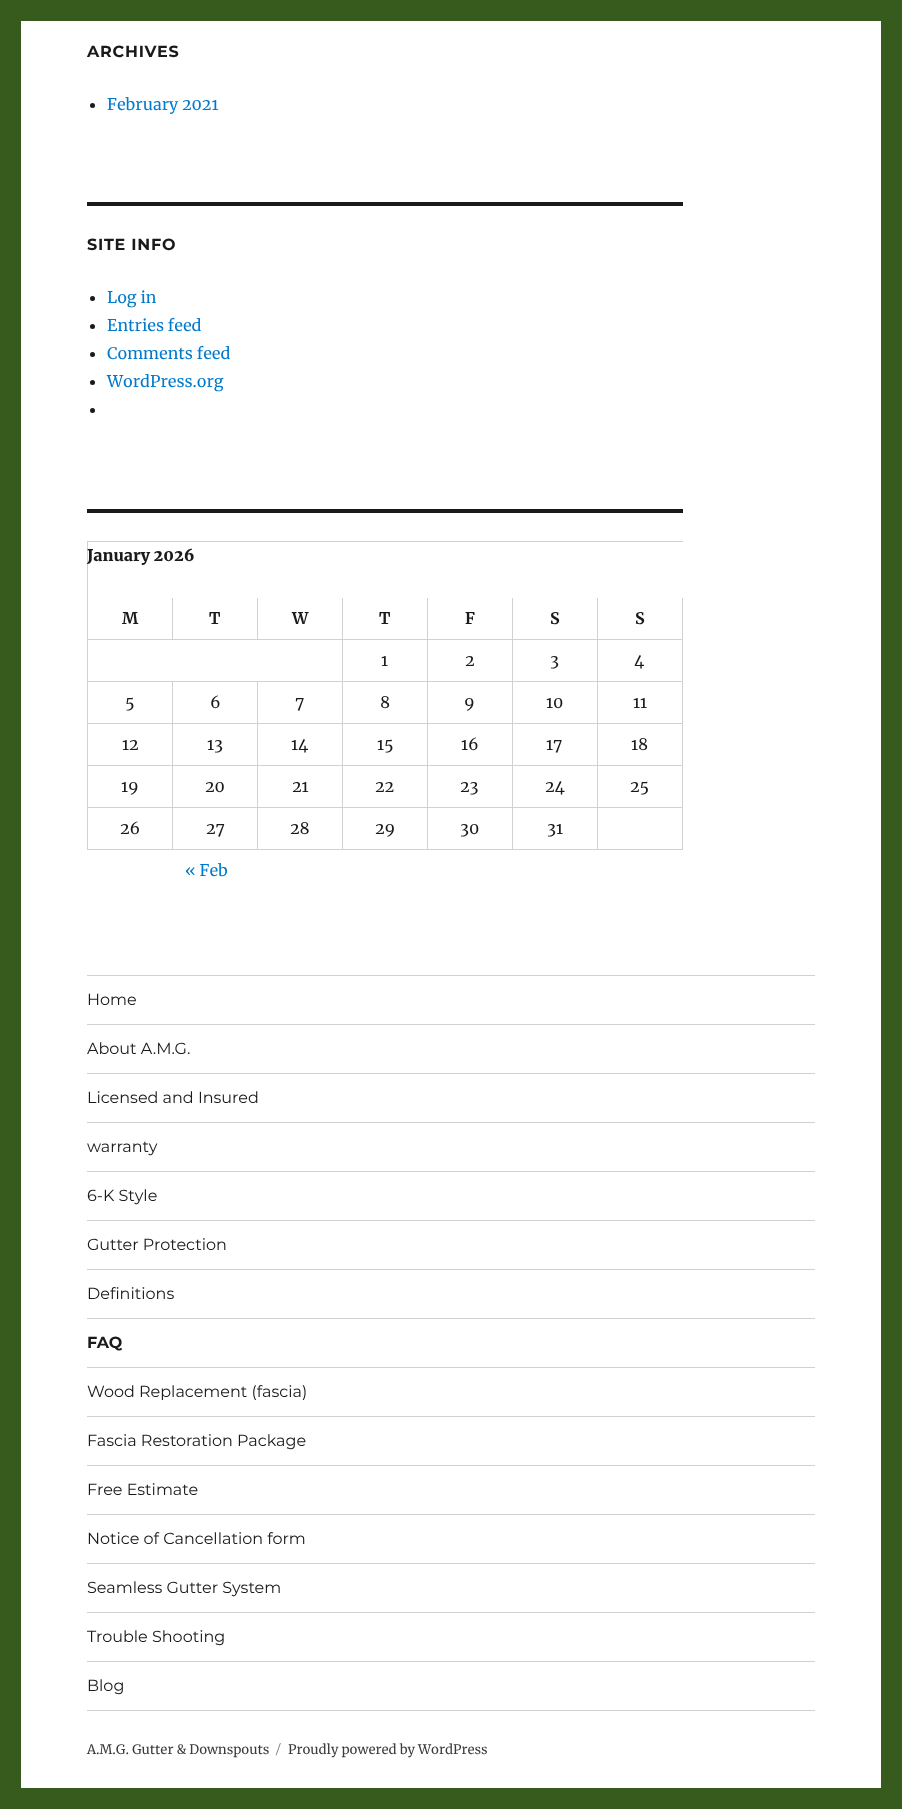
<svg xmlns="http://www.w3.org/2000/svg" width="902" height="1809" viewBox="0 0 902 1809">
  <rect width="100%" height="100%" fill="#365b1c"/>
  <path d="M21 21h860v1767H21z" fill="#fff"/>
  <circle cx="92.5" cy="105.5" r="2.5" fill="#1a1a1a"/>
  <path d="M87 202h596v4H87z" fill="#1a1a1a"/>
  <circle cx="92.5" cy="298.5" r="2.5" fill="#1a1a1a"/>
  <circle cx="92.5" cy="326.5" r="2.5" fill="#1a1a1a"/>
  <circle cx="92.5" cy="354.5" r="2.5" fill="#1a1a1a"/>
  <circle cx="92.5" cy="382.5" r="2.5" fill="#1a1a1a"/>
  <circle cx="92.5" cy="410.5" r="2.5" fill="#1a1a1a"/>
  <path d="M87 509h596v4H87z" fill="#1a1a1a"/>
  <path d="M87 541h596v1H87z" fill="#d1d1d1"/>
  <path d="M87 541h1v309H87z" fill="#d1d1d1"/>
  <path d="M172 598h1v42H172z" fill="#d1d1d1"/>
  <path d="M88 639h85v1H88z" fill="#d1d1d1"/>
  <path d="M257 598h1v42H257z" fill="#d1d1d1"/>
  <path d="M173 639h85v1H173z" fill="#d1d1d1"/>
  <path d="M342 598h1v252H342z" fill="#d1d1d1"/>
  <path d="M258 639h85v1H258z" fill="#d1d1d1"/>
  <path d="M427 598h1v252H427z" fill="#d1d1d1"/>
  <path d="M343 639h85v1H343z" fill="#d1d1d1"/>
  <path d="M512 598h1v252H512z" fill="#d1d1d1"/>
  <path d="M428 639h85v1H428z" fill="#d1d1d1"/>
  <path d="M597 598h1v252H597z" fill="#d1d1d1"/>
  <path d="M513 639h85v1H513z" fill="#d1d1d1"/>
  <path d="M682 598h1v252H682z" fill="#d1d1d1"/>
  <path d="M598 639h85v1H598z" fill="#d1d1d1"/>
  <path d="M88 681h595v1H88z" fill="#d1d1d1"/>
  <path d="M172 682h1v168H172z" fill="#d1d1d1"/>
  <path d="M88 723h85v1H88z" fill="#d1d1d1"/>
  <path d="M257 682h1v168H257z" fill="#d1d1d1"/>
  <path d="M173 723h510v1H173z" fill="#d1d1d1"/>
  <path d="M88 765h595v1H88z" fill="#d1d1d1"/>
  <path d="M88 807h595v1H88z" fill="#d1d1d1"/>
  <path d="M88 849h595v1H88z" fill="#d1d1d1"/>
  <path d="M87 1710h728v1H87z" fill="#d1d1d1"/>
  <path d="M87 975h728v1H87z" fill="#d1d1d1"/>
  <path d="M87 1024h728v1H87z" fill="#d1d1d1"/>
  <path d="M87 1073h728v1H87z" fill="#d1d1d1"/>
  <path d="M87 1122h728v1H87z" fill="#d1d1d1"/>
  <path d="M87 1171h728v1H87z" fill="#d1d1d1"/>
  <path d="M87 1220h728v1H87z" fill="#d1d1d1"/>
  <path d="M87 1269h728v1H87z" fill="#d1d1d1"/>
  <path d="M87 1318h728v1H87z" fill="#d1d1d1"/>
  <path d="M87 1367h728v1H87z" fill="#d1d1d1"/>
  <path d="M87 1416h728v1H87z" fill="#d1d1d1"/>
  <path d="M87 1465h728v1H87z" fill="#d1d1d1"/>
  <path d="M87 1514h728v1H87z" fill="#d1d1d1"/>
  <path d="M87 1563h728v1H87z" fill="#d1d1d1"/>
  <path d="M87 1612h728v1H87z" fill="#d1d1d1"/>
  <path d="M87 1661h728v1H87z" fill="#d1d1d1"/>
  <text x="87" y="57" font-family="Montserrat" font-size="16" font-weight="100" letter-spacing="0.75" fill="#1a1a1a">ARCHIVES</text>
  <text x="107" y="110" font-family="Merriweather" font-size="16" fill="#007acc">February 2021</text>
  <text x="87" y="250" font-family="Montserrat" font-size="16" font-weight="100" letter-spacing="0.75" fill="#1a1a1a">SITE INFO</text>
  <g font-family="Merriweather" font-size="16" fill="#007acc">
    <text x="107" y="303">Log in</text>
    <text x="107" y="331">Entries feed</text>
    <text x="107" y="359">Comments feed</text>
    <text x="107" y="387">WordPress.org</text>
  </g>
  <text x="87" y="561" font-family="Merriweather" font-size="16" font-weight="900" fill="#1a1a1a">January 2026</text>
  <g font-family="Merriweather" font-size="16" font-weight="bold" fill="#1a1a1a">
    <text x="122" y="624">M</text>
    <text x="209" y="624">T</text>
    <text x="292" y="624">W</text>
    <text x="379" y="624">T</text>
    <text x="465" y="624">F</text>
    <text x="550" y="624">S</text>
    <text x="635" y="624">S</text>
  </g>
  <g font-family="Merriweather" font-size="16" fill="#1a1a1a">
    <text x="381" y="666">1</text>
    <text x="465" y="666">2</text>
    <text x="550" y="666">3</text>
    <text x="634" y="666">4</text>
    <text x="125" y="708">5</text>
    <text x="210" y="708">6</text>
    <text x="295" y="708">7</text>
    <text x="380" y="708">8</text>
    <text x="464" y="708">9</text>
    <text x="546" y="708">10</text>
    <text x="633" y="708">11</text>
    <text x="122" y="750">12</text>
    <text x="207" y="750">13</text>
    <text x="291" y="750">14</text>
    <text x="377" y="750">15</text>
    <text x="461" y="750">16</text>
    <text x="546" y="750">17</text>
    <text x="631" y="750">18</text>
    <text x="121" y="792">19</text>
    <text x="205" y="792">20</text>
    <text x="292" y="792">21</text>
    <text x="375" y="792">22</text>
    <text x="460" y="792">23</text>
    <text x="545" y="792">24</text>
    <text x="630" y="792">25</text>
    <text x="120" y="834">26</text>
    <text x="206" y="834">27</text>
    <text x="290" y="834">28</text>
    <text x="375" y="834">29</text>
    <text x="460" y="834">30</text>
    <text x="547" y="834">31</text>
  </g>
  <text x="185" y="876" font-family="Merriweather" font-size="16" fill="#007acc">« Feb</text>
  <g font-family="'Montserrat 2'" font-size="16" font-weight="100" fill="#1a1a1a">
    <text x="87" y="1005">Home</text>
    <text x="87" y="1054">About A.M.G.</text>
    <text x="87" y="1103">Licensed and Insured</text>
    <text x="87" y="1152">warranty</text>
    <text x="87" y="1201">6-K Style</text>
    <text x="87" y="1250">Gutter Protection</text>
    <text x="87" y="1299">Definitions</text>
  </g>
  <text x="87" y="1348" font-family="Montserrat" font-size="16" font-weight="100" fill="#1a1a1a">FAQ</text>
  <g font-family="'Montserrat 2'" font-size="16" font-weight="100" fill="#1a1a1a">
    <text x="87" y="1397">Wood Replacement (fascia)</text>
    <text x="87" y="1446">Fascia Restoration Package</text>
    <text x="87" y="1495">Free Estimate</text>
    <text x="87" y="1544">Notice of Cancellation form</text>
    <text x="87" y="1593">Seamless Gutter System</text>
    <text x="87" y="1642">Trouble Shooting</text>
    <text x="87" y="1691">Blog</text>
  </g>
  <text x="87" y="1754" font-family="Merriweather" font-size="13" fill="#3a3a3a">A.M.G. Gutter &amp; Downspouts</text>
  <text x="276" y="1754" font-family="'Montserrat 2'" font-size="13" font-weight="100" fill="#757575">/</text>
  <text x="288" y="1754" font-family="Merriweather" font-size="13" fill="#3a3a3a">Proudly powered by WordPress</text>
</svg>
